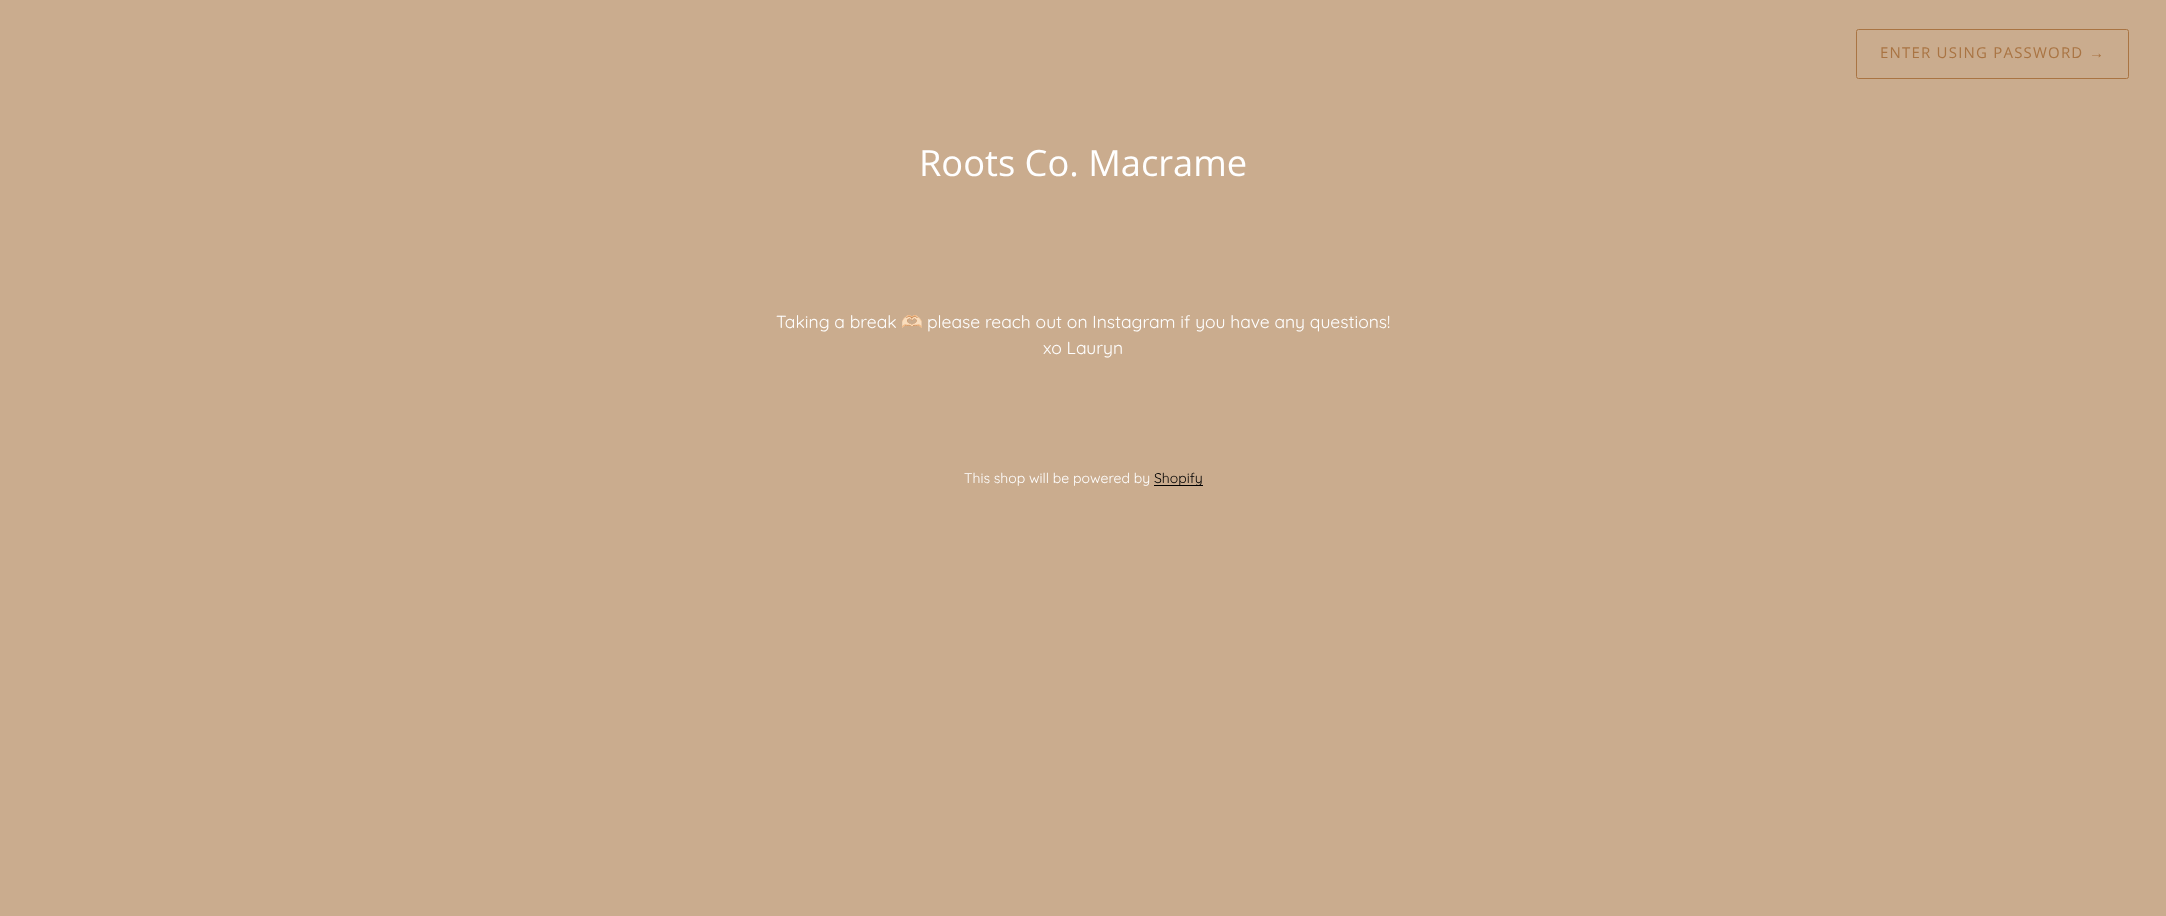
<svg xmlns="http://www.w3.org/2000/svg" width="2166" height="916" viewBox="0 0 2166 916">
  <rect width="100%" height="100%" fill="#caac8e"/>
  <rect x="1856.5" y="29.5" width="272" height="49" rx="2" fill="none" stroke="#a97443"/>
  <path d="M1154 485h49v1H1154z" fill="#000"/>
  <text x="1880" y="58" font-family="Open Sans" font-size="15" letter-spacing="1.2" fill="#a97443">ENTER USING PASSWORD</text>
  <text x="2089" y="58" font-family="Liberation Sans" font-size="15" letter-spacing="1.2" fill="#a97443">→</text>
  <text x="919" y="176" font-family="Open Sans" font-size="36.25" fill="#fff">Roots Co. Macrame</text>
  <text x="776" y="328" font-family="Quicksand" font-size="17.5" fill="#fff">Taking a break</text>
  <text x="901" y="328" font-family="Noto Color Emoji" font-size="17.5" fill="#fff">🫶🏻</text>
  <g font-family="Quicksand" font-size="17.5" fill="#fff">
    <text x="927" y="328">please reach out on Instagram if you have any questions!</text>
    <text x="1043" y="354">xo Lauryn</text>
  </g>
  <text x="964" y="483" font-family="Quicksand" font-size="14" fill="#fff">This shop will be powered by</text>
  <text x="1154" y="483" font-family="Quicksand" font-size="14" fill="#000">Shopify</text>
</svg>
